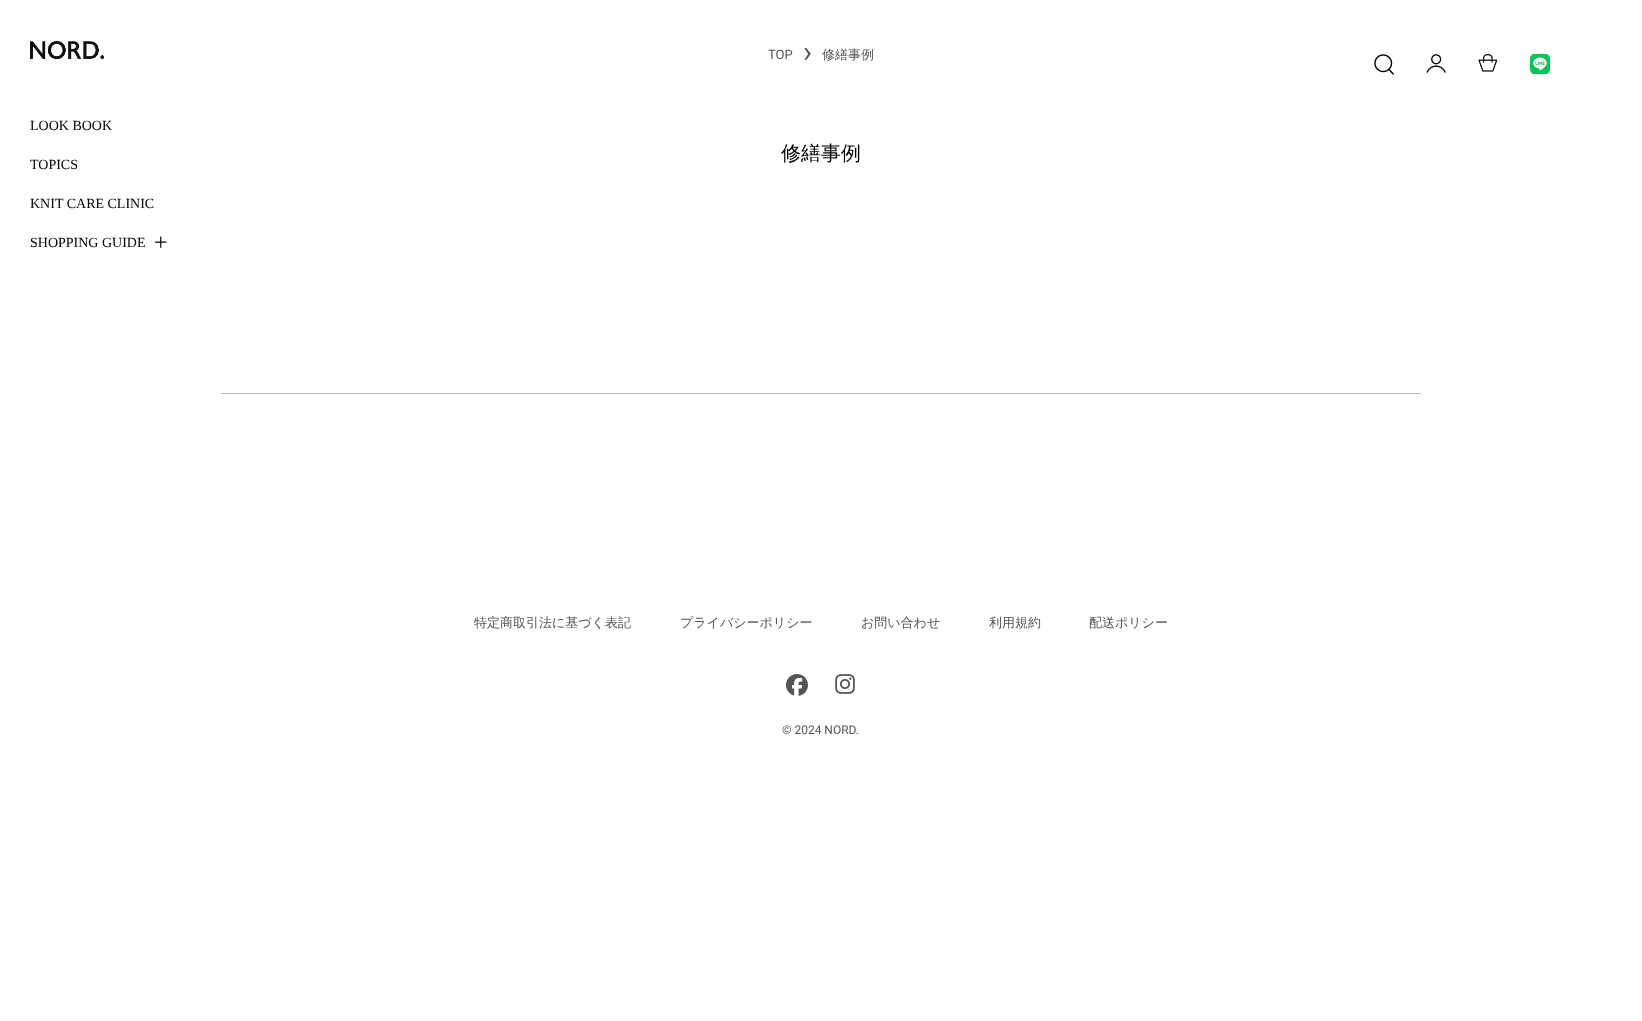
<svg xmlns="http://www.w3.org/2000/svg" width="1642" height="1021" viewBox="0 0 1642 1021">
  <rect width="100%" height="100%" fill="#fff"/>
  <image x="1374" y="54" width="20" height="21" href="img/1.png"/>
  <image x="1426" y="54" width="20" height="19" href="img/2.png"/>
  <image x="1478" y="54" width="19" height="18" href="img/3.png"/>
  <image x="1530" y="54" width="20" height="20" href="img/4.png"/>
  <image x="30" y="40" width="74" height="19" href="img/5.png"/>
  <path d="M221 393h1200v1H221z" fill="#bdbdbd"/>
  <image x="786" y="674" width="22" height="22" href="img/6.png"/>
  <image x="835" y="674" width="20" height="20" href="img/7.png"/>
  <g font-family="Liberation Serif" font-size="14" fill="#000">
    <text x="30" y="130">LOOK BOOK</text>
    <text x="30" y="169">TOPICS</text>
    <text x="30" y="208">KNIT CARE CLINIC</text>
    <text x="30" y="247">SHOPPING GUIDE</text>
  </g>
  <text x="154" y="250" font-family="Liberation Serif" font-size="24" fill="#000">+</text>
  <text x="768" y="59" font-family="Roboto" font-size="13" fill="#555450">TOP</text>
  <text x="803" y="62" font-family="Roboto" font-size="30" fill="#555450">›</text>
  <text x="822" y="59" font-family="WenQuanYi Zen Hei" font-size="13" font-weight="500" fill="#555450">修繕事例</text>
  <text x="781" y="160" font-family="WenQuanYi Zen Hei" font-size="20" font-weight="500" fill="#000">修繕事例</text>
  <g font-family="WenQuanYi Zen Hei" font-size="13" font-weight="500" fill="#555450">
    <text x="474" y="627">特定商取引法に基づく表記</text>
    <text x="680" y="627">プライバシーポリシー</text>
    <text x="861" y="627">お問い合わせ</text>
    <text x="989" y="627">利用規約</text>
    <text x="1089" y="627">配送ポリシー</text>
  </g>
  <text x="782" y="734" font-family="Roboto" font-size="12" fill="#555450">© 2024 NORD.</text>
</svg>
